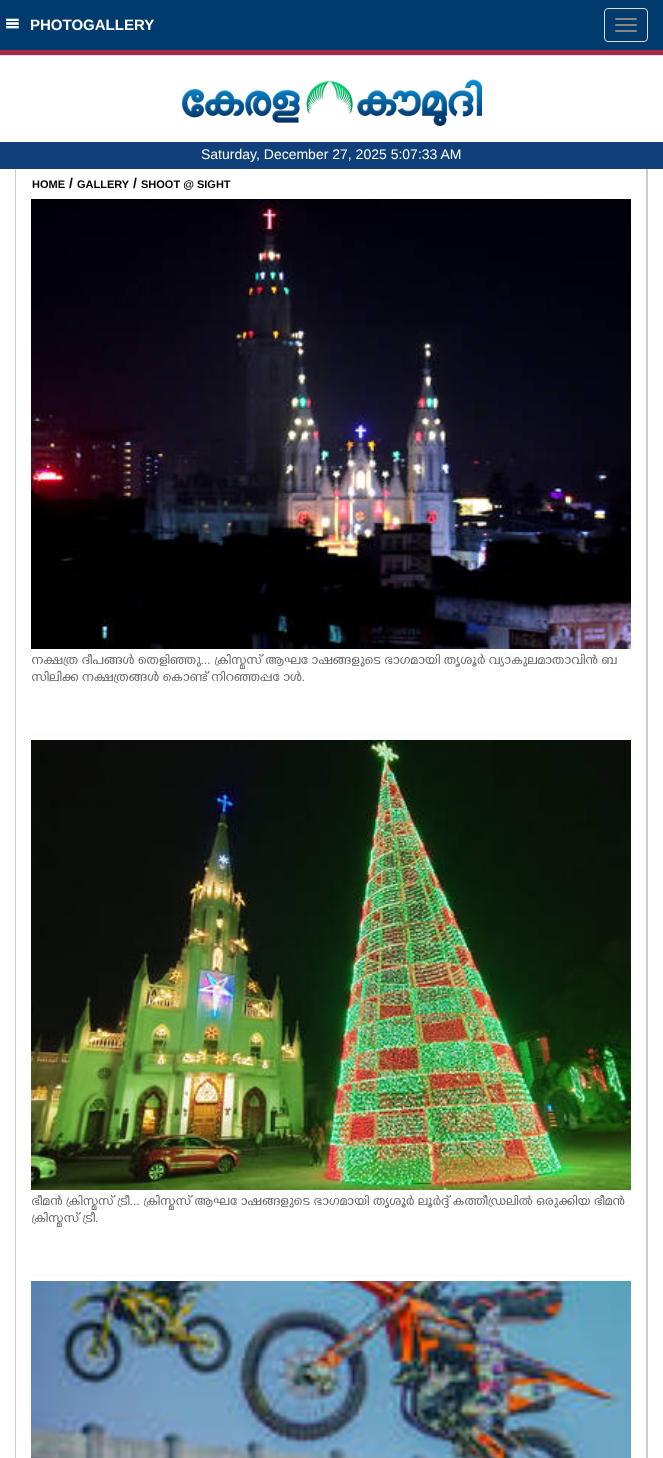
<svg xmlns="http://www.w3.org/2000/svg" width="663" height="1458" viewBox="0 0 663 1458">
  <defs>
    <clipPath id="clip1"><path d="M31 654h600v80H31z"/></clipPath>
    <clipPath id="clip2"><path d="M31 1195h600v80H31z"/></clipPath>
  </defs>
  <rect width="100%" height="100%" fill="#fff"/>
  <path d="M0 0h663v50H0z" fill="#013a6d"/>
  <path d="M0 55h663v1H0z" fill="#e7e7e7"/>
  <image x="6" y="18" width="13" height="11" href="img/1.png"/>
  <rect x="604.5" y="8.5" width="43" height="33" rx="3.5" fill="none" stroke="#ddd"/>
  <rect x="615" y="18" width="22" height="2" rx="1" fill="#888"/>
  <rect x="615" y="24" width="22" height="2" rx="1" fill="#888"/>
  <rect x="615" y="30" width="22" height="2" rx="1" fill="#888"/>
  <path d="M0 50h663v5H0z" fill="#a52b46"/>
  <image x="182" y="79" width="300" height="47" href="img/2.png"/>
  <path d="M0 142h663v27H0z" fill="#0f4079"/>
  <path d="M646 169h2v1289H646z" fill="#ccc"/>
  <path d="M15 169h1v1289H15z" fill="#ccc"/>
  <path d="M31 734h600v1H31z" fill="#f6f6f6"/>
  <image x="31" y="199" width="600" height="450" href="img/3.png"/>
  <path d="M31 1275h600v1H31z" fill="#f6f6f6"/>
  <image x="31" y="740" width="600" height="450" href="img/4.png"/>
  <image x="31" y="1281" width="600" height="177" href="img/5.png"/>
  <text x="30" y="30" font-family="Liberation Sans" font-size="15" font-weight="bold" fill="#fff">PHOTOGALLERY</text>
  <text x="201" y="159" font-family="Liberation Sans" font-size="14" fill="#fff">Saturday, December 27, 2025 5:07:33 AM</text>
  <text x="32" y="188" font-family="Liberation Sans" font-size="11" font-weight="bold" fill="#000">HOME</text>
  <text x="69" y="188" font-family="Liberation Sans" font-size="14" font-weight="bold" fill="#000">/</text>
  <text x="77" y="188" font-family="Liberation Sans" font-size="11" font-weight="bold" fill="#000">GALLERY</text>
  <text x="133" y="188" font-family="Liberation Sans" font-size="14" font-weight="bold" fill="#000">/</text>
  <text x="141" y="188" font-family="Liberation Sans" font-size="11" font-weight="bold" fill="#000">SHOOT @ SIGHT</text>
  <g clip-path="url(#clip1)">
    <g font-family="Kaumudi" font-size="11.9" fill="#666">
      <text x="31" y="664">നക്ഷത്ര ദീപങ്ങൾ തെളിഞ്ഞു... ക്രിസ്മസ് ആഘോഷങ്ങളുടെ ഭാഗമായി തൃശൂർ വ്യാകുലമാതാവിൻ ബ</text>
      <text x="31" y="681">സിലിക്ക നക്ഷത്രങ്ങൾ കൊണ്ട് നിറഞ്ഞപ്പോൾ.</text>
    </g>
  </g>
  <g clip-path="url(#clip2)">
    <g font-family="Kaumudi" font-size="11.9" fill="#666">
      <text x="31" y="1205">ഭീമൻ ക്രിസ്മസ് ട്രീ... ക്രിസ്മസ് ആഘോഷങ്ങളുടെ ഭാഗമായി തൃശൂർ ലൂർദ്ദ് കത്തീഡ്രലിൽ ഒരുക്കിയ ഭീമൻ</text>
      <text x="31" y="1222">ക്രിസ്മസ് ട്രീ.</text>
    </g>
  </g>
</svg>
